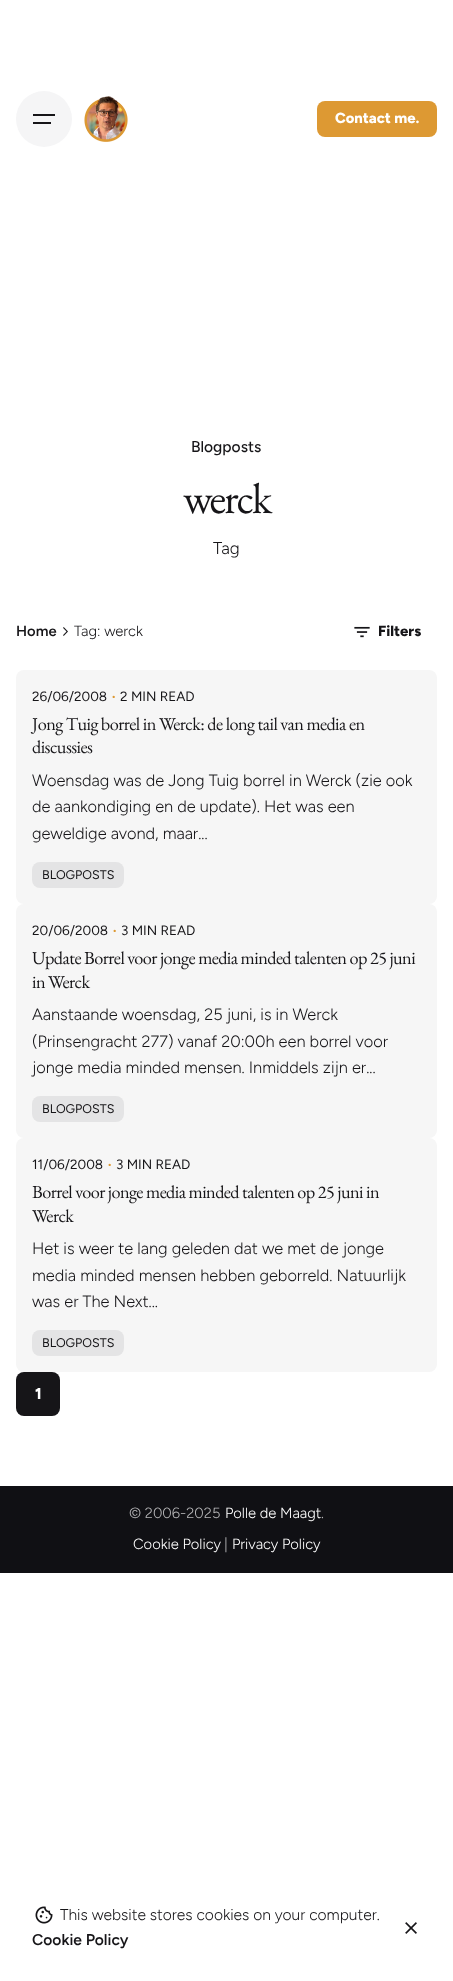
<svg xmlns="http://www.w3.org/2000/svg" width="453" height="1981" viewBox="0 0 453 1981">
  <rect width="100%" height="100%" fill="#fff"/>
  <circle cx="44" cy="119" r="28" fill="#f5f5f6"/>
  <path d="M33 114h22v2H33z" fill="#161518"/>
  <path d="M33 122h18v2H33z" fill="#161518"/>
  <image x="84" y="96" width="44" height="46" href="img/1.png"/>
  <rect x="317" y="101" width="120" height="36" rx="8" fill="#d93"/>
  <image x="63" y="627" width="5" height="9" href="img/2.png"/>
  <image x="354" y="626" width="16" height="12" href="img/3.png"/>
  <rect x="16" y="670" width="421" height="234" rx="8" fill="#f6f6f6"/>
  <rect x="32" y="862" width="92" height="26" rx="8" fill="#e4e4e5"/>
  <rect x="16" y="904" width="421" height="234" rx="8" fill="#f6f6f6"/>
  <rect x="32" y="1096" width="92" height="26" rx="8" fill="#e4e4e5"/>
  <rect x="16" y="1138" width="421" height="234" rx="8" fill="#f6f6f6"/>
  <rect x="32" y="1330" width="92" height="26" rx="8" fill="#e4e4e5"/>
  <rect x="16" y="1372" width="44" height="44" rx="8" fill="#161518"/>
  <path d="M0 1486h453v87H0z" fill="#101014"/>
  <image x="35" y="1906" width="18" height="18" href="img/4.png"/>
  <image x="405" y="1922" width="12" height="12" href="img/5.png"/>
  <text x="335" y="123" font-family="Figtree" font-size="14.75" font-weight="800" fill="#fff">Contact me.</text>
  <text x="191" y="452" font-family="Figtree" font-size="15.6" font-weight="500" fill="#161518">Blogposts</text>
  <text x="183" y="513" font-family="EB Garamond" font-size="43" letter-spacing="-2" fill="#161518">werck</text>
  <text x="213" y="554" font-family="Figtree" font-size="17" font-weight="300" fill="#161518">Tag</text>
  <text x="16" y="636" font-family="Figtree" font-size="14.75" font-weight="600" fill="#161518">Home</text>
  <text x="74" y="636" font-family="Figtree" font-size="14.75" font-weight="300" fill="#161518">Tag: werck</text>
  <text x="378" y="636" font-family="Figtree" font-size="14.75" font-weight="800" fill="#161518">Filters</text>
  <text x="32" y="701" font-family="Figtree" font-size="13.5" fill="#161518">26/06/2008</text>
  <text x="111" y="700" font-family="Figtree" font-size="11" fill="#d93">•</text>
  <text x="120" y="701" font-family="Figtree" font-size="13.5" fill="#161518">2 MIN READ</text>
  <g font-family="EB Garamond" font-size="18.25" letter-spacing="-0.55" fill="#161518">
    <text x="32" y="730">Jong Tuig borrel in Werck: de long tail van media en</text>
    <text x="32" y="753">discussies</text>
  </g>
  <g font-family="Figtree" font-size="16.4" font-weight="300" fill="#161518">
    <text x="32" y="786">Woensdag was de Jong Tuig borrel in Werck (zie ook</text>
    <text x="32" y="812">de aankondiging en de update). Het was een</text>
    <text x="32" y="839">geweldige avond, maar...</text>
  </g>
  <text x="42" y="879" font-family="Figtree" font-size="12.5" fill="#161518">BLOGPOSTS</text>
  <text x="32" y="935" font-family="Figtree" font-size="13.5" fill="#161518">20/06/2008</text>
  <text x="112" y="934" font-family="Figtree" font-size="11" fill="#d93">•</text>
  <text x="121" y="935" font-family="Figtree" font-size="13.5" fill="#161518">3 MIN READ</text>
  <g font-family="EB Garamond" font-size="18.25" letter-spacing="-0.55" fill="#161518">
    <text x="32" y="964">Update Borrel voor jonge media minded talenten op 25 juni</text>
    <text x="32" y="988">in Werck</text>
  </g>
  <g font-family="Figtree" font-size="16.4" font-weight="300" fill="#161518">
    <text x="32" y="1020">Aanstaande woensdag, 25 juni, is in Werck</text>
    <text x="32" y="1047">(Prinsengracht 277) vanaf 20:00h een borrel voor</text>
    <text x="32" y="1073">jonge media minded mensen. Inmiddels zijn er...</text>
  </g>
  <text x="42" y="1113" font-family="Figtree" font-size="12.5" fill="#161518">BLOGPOSTS</text>
  <text x="32" y="1169" font-family="Figtree" font-size="13.5" fill="#161518">11/06/2008</text>
  <text x="107" y="1168" font-family="Figtree" font-size="11" fill="#d93">•</text>
  <text x="116" y="1169" font-family="Figtree" font-size="13.5" fill="#161518">3 MIN READ</text>
  <g font-family="EB Garamond" font-size="18.25" letter-spacing="-0.55" fill="#161518">
    <text x="32" y="1198">Borrel voor jonge media minded talenten op 25 juni in</text>
    <text x="32" y="1222">Werck</text>
  </g>
  <g font-family="Figtree" font-size="16.4" font-weight="300" fill="#161518">
    <text x="32" y="1254">Het is weer te lang geleden dat we met de jonge</text>
    <text x="32" y="1281">media minded mensen hebben geborreld. Natuurlijk</text>
    <text x="32" y="1307">was er The Next...</text>
  </g>
  <text x="42" y="1347" font-family="Figtree" font-size="12.5" fill="#161518">BLOGPOSTS</text>
  <text x="35" y="1399" font-family="Figtree" font-size="15.6" font-weight="800" fill="#fff">1</text>
  <text x="129" y="1518" font-family="Figtree" font-size="14.75" font-weight="300" fill="#b7b7b9">© 2006-2025</text>
  <text x="225" y="1518" font-family="Figtree" font-size="14.75" font-weight="300" fill="#fff">Polle de Maagt</text>
  <text x="321" y="1518" font-family="Figtree" font-size="14.75" font-weight="300" fill="#b7b7b9">.</text>
  <text x="133" y="1549" font-family="Figtree" font-size="14.75" font-weight="300" fill="#fff">Cookie Policy</text>
  <text x="224" y="1549" font-family="Figtree" font-size="14.75" font-weight="300" fill="#b7b7b9">|</text>
  <text x="232" y="1549" font-family="Figtree" font-size="14.75" font-weight="300" fill="#fff">Privacy Policy</text>
  <text x="60" y="1920" font-family="Figtree" font-size="15.6" font-weight="300" fill="#161518">This website stores cookies on your computer.</text>
  <text x="32" y="1945" font-family="Figtree" font-size="15.6" font-weight="600" fill="#161518">Cookie Policy</text>
</svg>
